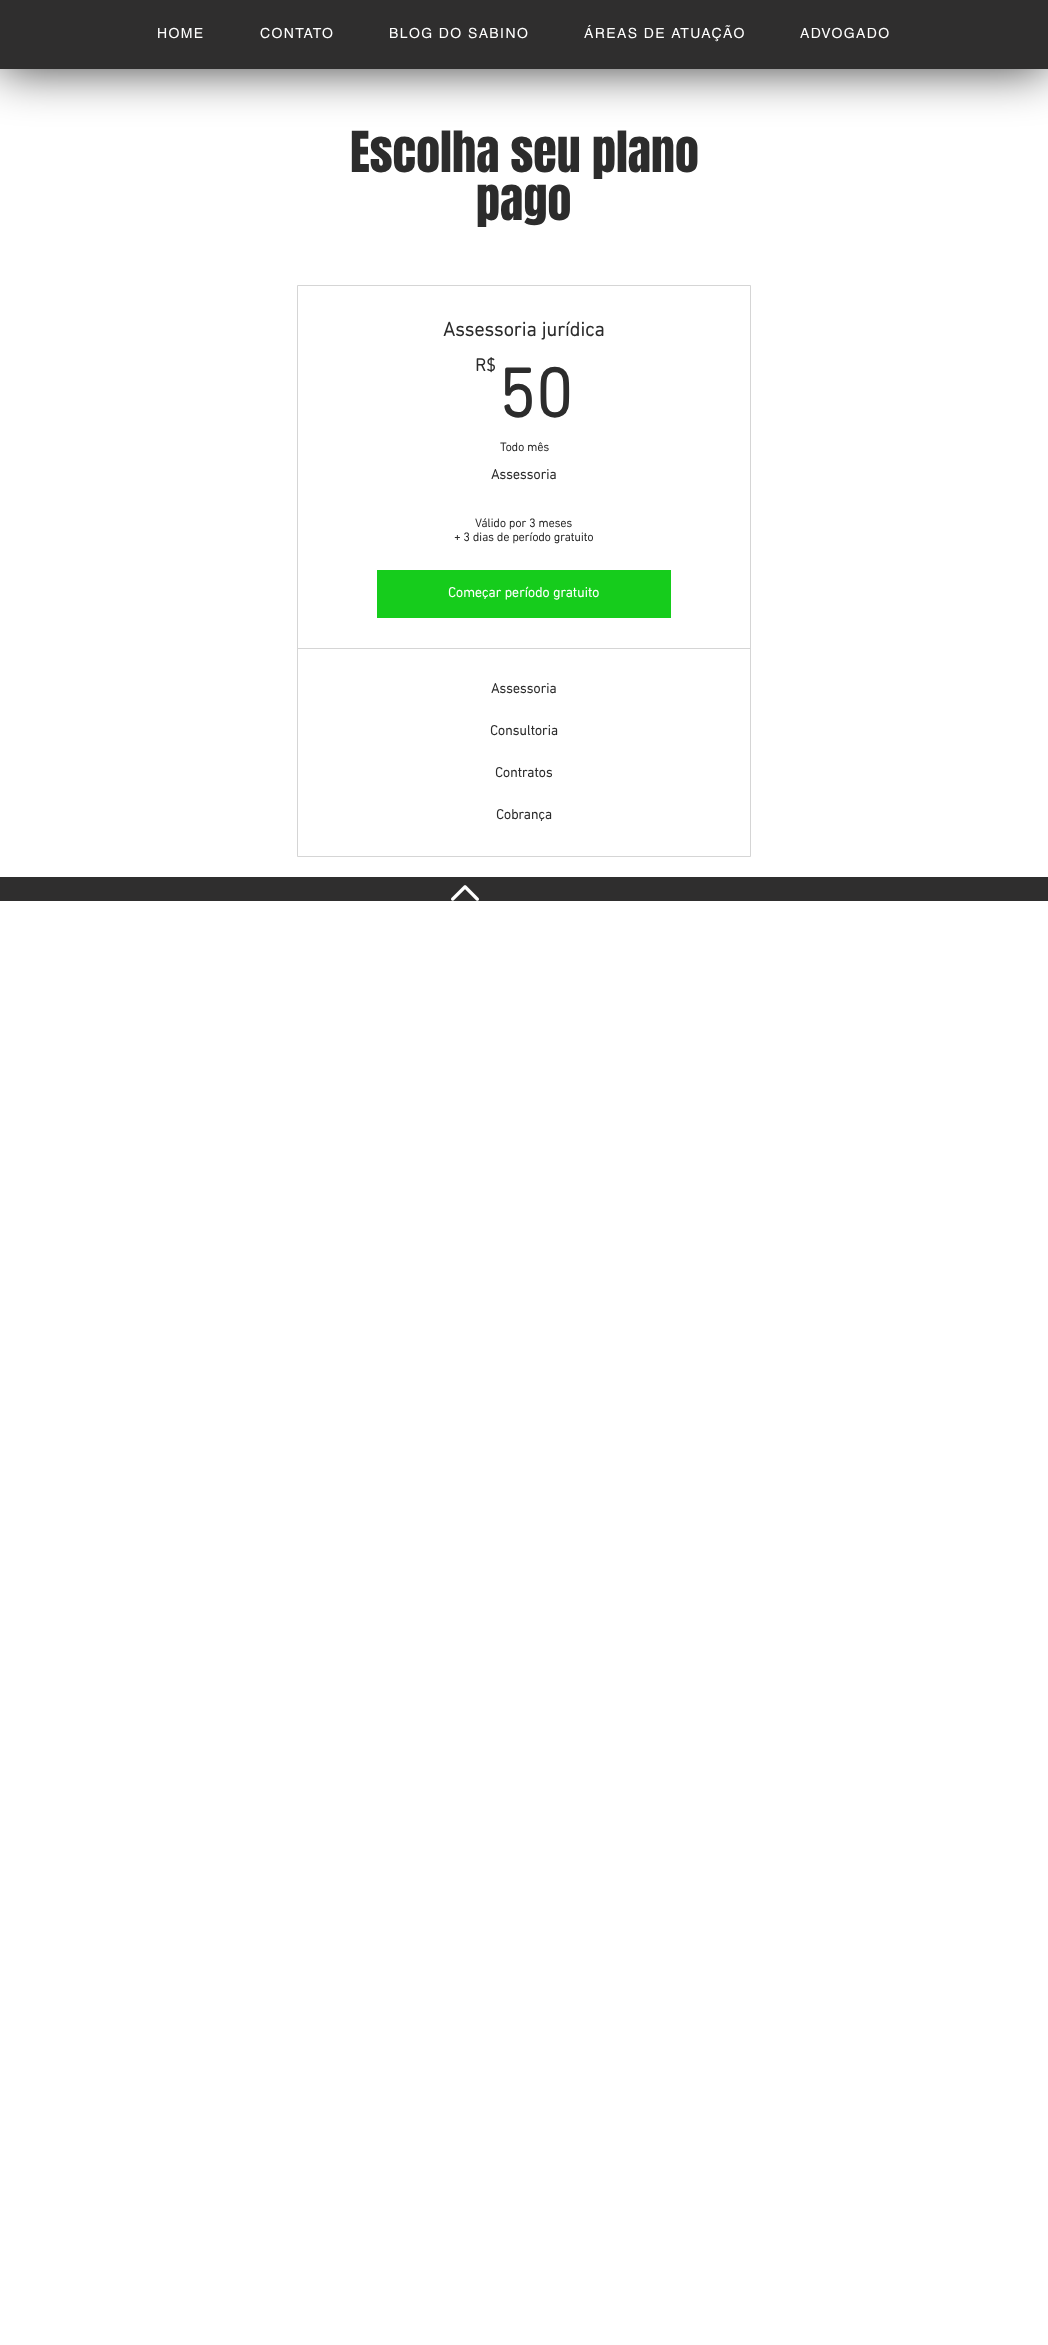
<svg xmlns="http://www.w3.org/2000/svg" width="1048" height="2345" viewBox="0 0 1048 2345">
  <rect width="100%" height="100%" fill="#fff"/>
  <path d="M0 0h1048v69H0z" fill="#000000c4" filter="blur(24.5px)"/>
  <path d="M0 0h1048v69H0z" fill="#2f2e2e"/>
  <path d="M297.5 285.5h453v571H297.5z" fill="none" stroke="#d5d5d5"/>
  <path d="M377 570h294v48H377z" fill="#16cc1c"/>
  <path d="M298 648h452v1H298z" fill="#d5d5d5"/>
  <path d="M0 877h1048v24H0z" fill="#2f2e2e"/>
  <image x="451" y="885" width="28" height="16" href="img/1.png"/>
  <g font-family="helvetica" font-size="14" letter-spacing="1.4" fill="#fff">
    <text x="157" y="38">HOME</text>
    <text x="260" y="38">CONTATO</text>
    <text x="389" y="38">BLOG DO SABINO</text>
    <text x="584" y="38">ÁREAS DE ATUAÇÃO</text>
    <text x="800" y="38">ADVOGADO</text>
  </g>
  <g font-family="Anton" font-size="48" fill="#2c2c2c">
    <text x="350" y="172">Escolha seu plano</text>
    <text x="476" y="220">pago</text>
  </g>
  <text x="443" y="336" font-family="'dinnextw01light'" font-size="20" font-weight="bold" fill="#2c2c2c">Assessoria jurídica</text>
  <text x="475" y="371" font-family="'dinnextw01light'" font-size="18" font-weight="bold" fill="#2c2c2c">R$</text>
  <text x="498" y="417" font-family="'dinnextw01light'" font-size="70" font-weight="bold" fill="#2c2c2c">50</text>
  <text x="500" y="451" font-family="'dinnextw01light'" font-size="12" font-weight="bold" fill="#2c2c2c">Todo mês</text>
  <text x="491" y="479" font-family="'dinnextw01light'" font-size="14" font-weight="bold" fill="#2c2c2c">Assessoria</text>
  <g font-family="'dinnextw01light'" font-size="12" font-weight="bold" fill="#2c2c2c">
    <text x="475" y="527">Válido por 3 meses</text>
    <text x="454" y="541">+ 3 dias de período gratuito</text>
  </g>
  <text x="448" y="597" font-family="'dinnextw01light'" font-size="14" font-weight="bold" fill="#fff">Começar período gratuito</text>
  <g font-family="'dinnextw01light'" font-size="14" font-weight="bold" fill="#2c2c2c">
    <text x="491" y="693">Assessoria</text>
    <text x="490" y="735">Consultoria</text>
    <text x="495" y="777">Contratos</text>
    <text x="496" y="819">Cobrança</text>
  </g>
</svg>
